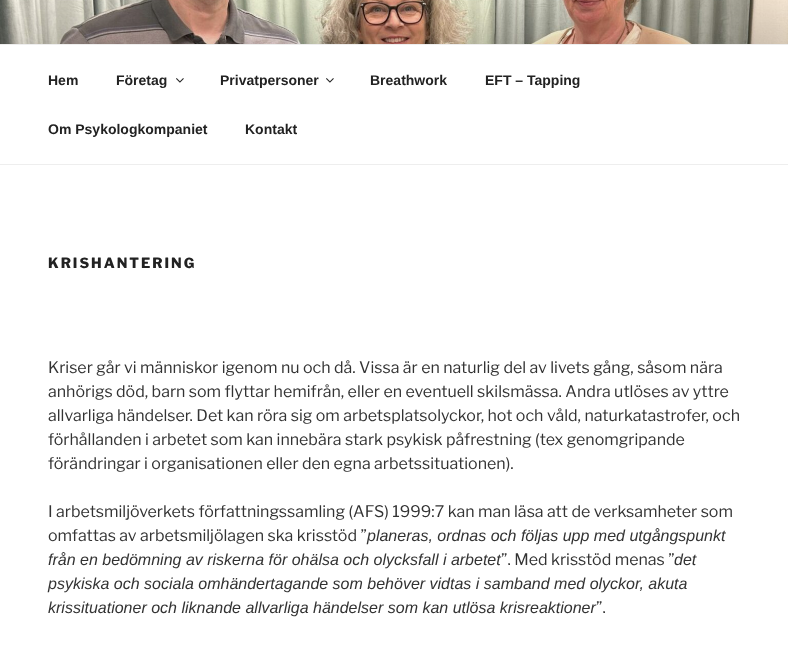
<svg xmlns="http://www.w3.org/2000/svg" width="788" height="657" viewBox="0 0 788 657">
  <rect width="100%" height="100%" fill="#fff"/>
  <image x="0" y="0" width="788" height="44" href="img/1.png"/>
  <path d="M0 44h788v1H0z" fill="#eee"/>
  <path d="M0 164h788v1H0z" fill="#eee"/>
  <image x="176" y="78" width="8" height="5" href="img/2.png"/>
  <image x="326" y="78" width="8" height="5" href="img/2.png"/>
  <g font-family="Liberation Sans" font-size="14" font-weight="bold" fill="#222">
    <text x="48" y="85">Hem</text>
    <text x="116" y="85">Företag</text>
    <text x="220" y="85">Privatpersoner</text>
    <text x="370" y="85">Breathwork</text>
    <text x="485" y="85">EFT – Tapping</text>
    <text x="48" y="134">Om Psykologkompaniet</text>
    <text x="245" y="134">Kontakt</text>
  </g>
  <text x="48" y="268" font-family="Libre Franklin" font-size="14" font-weight="100" letter-spacing="2" fill="#222">KRISHANTERING</text>
  <g font-family="'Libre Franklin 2'" font-size="16" font-weight="100" fill="#333">
    <text x="48" y="373">Kriser går vi människor igenom nu och då. Vissa är en naturlig del av livets gång, såsom nära</text>
    <text x="48" y="397">anhörigs död, barn som flyttar hemifrån, eller en eventuell skilsmässa. Andra utlöses av yttre</text>
    <text x="48" y="421">allvarliga händelser. Det kan röra sig om arbetsplatsolyckor, hot och våld, naturkatastrofer, och</text>
    <text x="48" y="445">förhållanden i arbetet som kan innebära stark psykisk påfrestning (tex genomgripande</text>
    <text x="48" y="469">förändringar i organisationen eller den egna arbetssituationen).</text>
    <text x="48" y="517">I arbetsmiljöverkets författningssamling (AFS) 1999:7 kan man läsa att de verksamheter som</text>
    <text x="48" y="541">omfattas av arbetsmiljölagen ska krisstöd ”</text>
  </g>
  <g font-family="Liberation Sans" font-size="16" font-style="italic" fill="#333">
    <text x="367" y="541">planeras, ordnas och följas upp med utgångspunkt</text>
    <text x="48" y="565">från en bedömning av riskerna för ohälsa och olycksfall i arbetet</text>
  </g>
  <text x="501" y="565" font-family="'Libre Franklin 2'" font-size="16" font-weight="100" fill="#333">”. Med krisstöd menas ”</text>
  <g font-family="Liberation Sans" font-size="16" font-style="italic" fill="#333">
    <text x="674" y="565">det</text>
    <text x="48" y="589">psykiska och sociala omhändertagande som behöver vidtas i samband med olyckor, akuta</text>
    <text x="48" y="613">krissituationer och liknande allvarliga händelser som kan utlösa krisreaktioner</text>
  </g>
  <text x="596" y="613" font-family="'Libre Franklin 2'" font-size="16" font-weight="100" fill="#333">”.</text>
</svg>
